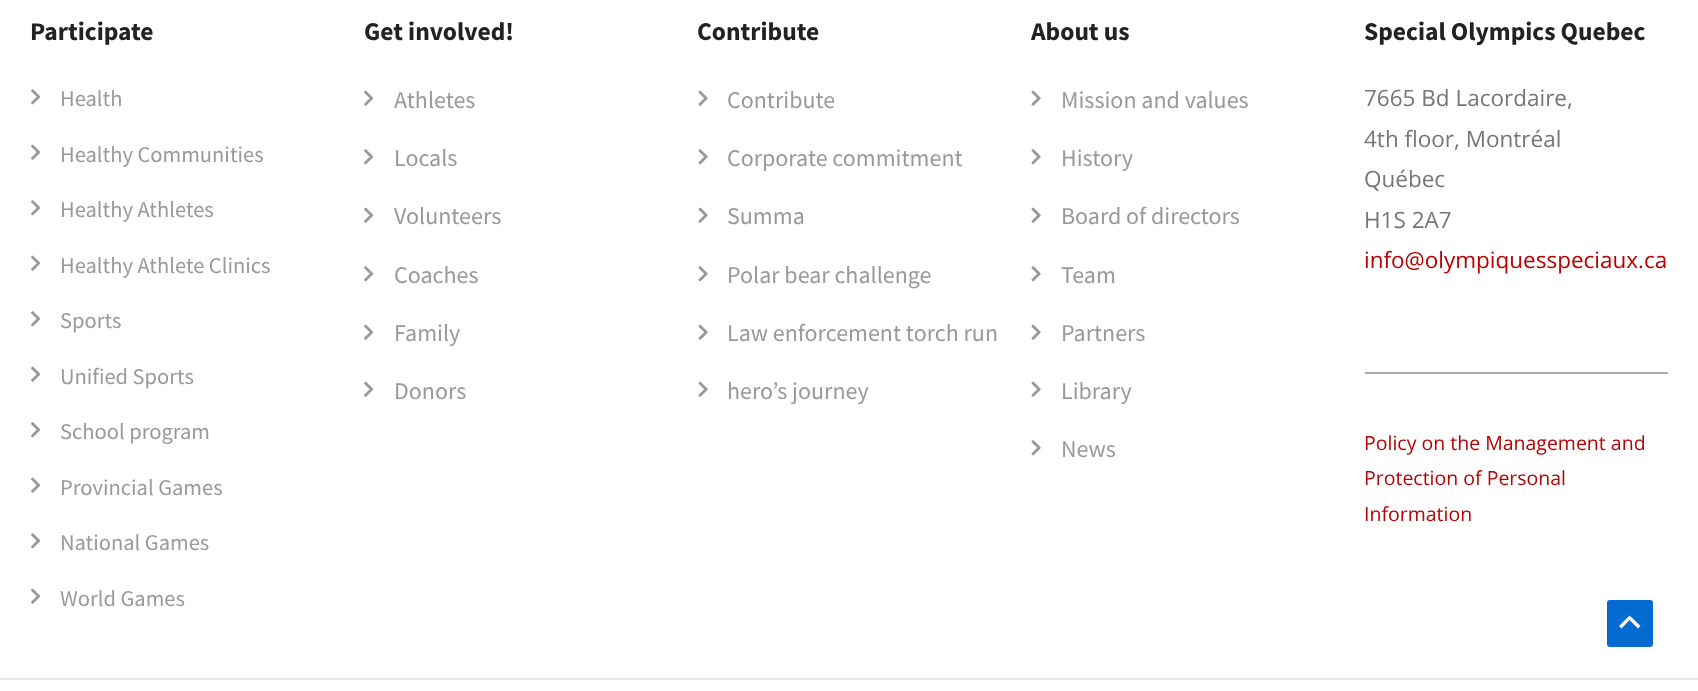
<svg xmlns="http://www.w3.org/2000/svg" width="1698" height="691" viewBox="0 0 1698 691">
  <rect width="100%" height="100%" fill="#fff"/>
  <image x="31" y="89" width="10" height="16" href="img/1.png"/>
  <image x="31" y="144" width="10" height="16" href="img/2.png"/>
  <image x="31" y="200" width="10" height="16" href="img/1.png"/>
  <image x="31" y="255" width="10" height="16" href="img/2.png"/>
  <image x="31" y="311" width="10" height="16" href="img/1.png"/>
  <image x="31" y="366" width="10" height="16" href="img/2.png"/>
  <image x="31" y="422" width="10" height="16" href="img/1.png"/>
  <image x="31" y="477" width="10" height="16" href="img/2.png"/>
  <image x="31" y="533" width="10" height="16" href="img/1.png"/>
  <image x="31" y="588" width="10" height="16" href="img/2.png"/>
  <image x="364" y="90" width="10" height="16" href="img/2.png"/>
  <image x="364" y="149" width="10" height="16" href="img/1.png"/>
  <image x="364" y="207" width="10" height="16" href="img/2.png"/>
  <image x="364" y="266" width="10" height="16" href="img/1.png"/>
  <image x="364" y="324" width="10" height="16" href="img/2.png"/>
  <image x="364" y="381" width="10" height="16" href="img/2.png"/>
  <image x="698" y="90" width="10" height="16" href="img/3.png"/>
  <image x="698" y="149" width="10" height="16" href="img/4.png"/>
  <image x="698" y="207" width="10" height="16" href="img/3.png"/>
  <image x="698" y="266" width="10" height="16" href="img/4.png"/>
  <image x="698" y="324" width="10" height="16" href="img/3.png"/>
  <image x="698" y="381" width="10" height="16" href="img/3.png"/>
  <image x="1031" y="90" width="10" height="16" href="img/3.png"/>
  <image x="1031" y="149" width="10" height="16" href="img/4.png"/>
  <image x="1031" y="207" width="10" height="16" href="img/3.png"/>
  <image x="1031" y="266" width="10" height="16" href="img/4.png"/>
  <image x="1031" y="324" width="10" height="16" href="img/3.png"/>
  <image x="1031" y="381" width="10" height="16" href="img/3.png"/>
  <image x="1031" y="440" width="10" height="16" href="img/4.png"/>
  <path d="M1365 372h303v2H1365z" fill="#afabab"/>
  <path d="M0 678h1698v2H0z" fill="#e5e5e5"/>
  <rect x="1607" y="600" width="46" height="47" rx="3" fill="#046bd2"/>
  <path d="M1640.5 626L1629.5 615.5L1619 626L1621.5 628.5L1629.5 620L1638 628.5Z" fill="#fff"/>
  <text x="30" y="40" font-family="Source Sans Pro" font-size="25.5" font-weight="bold" fill="#222">Participate</text>
  <g font-family="Source Sans Pro" font-size="22.5" fill="#999">
    <text x="60" y="106">Health</text>
    <text x="60" y="162">Healthy Communities</text>
    <text x="60" y="217">Healthy Athletes</text>
    <text x="60" y="273">Healthy Athlete Clinics</text>
    <text x="60" y="328">Sports</text>
    <text x="60" y="384">Unified Sports</text>
    <text x="60" y="439">School program</text>
    <text x="60" y="495">Provincial Games</text>
    <text x="60" y="550">National Games</text>
    <text x="60" y="606">World Games</text>
  </g>
  <text x="364" y="40" font-family="Source Sans Pro" font-size="25.5" font-weight="bold" fill="#222">Get involved!</text>
  <g font-family="Source Sans Pro" font-size="24" fill="#999">
    <text x="394" y="108">Athletes</text>
    <text x="394" y="166">Locals</text>
    <text x="394" y="224">Volunteers</text>
    <text x="394" y="283">Coaches</text>
    <text x="394" y="341">Family</text>
    <text x="394" y="399">Donors</text>
  </g>
  <text x="697" y="40" font-family="Source Sans Pro" font-size="25.5" font-weight="bold" fill="#222">Contribute</text>
  <g font-family="Source Sans Pro" font-size="24" fill="#999">
    <text x="727" y="108">Contribute</text>
    <text x="727" y="166">Corporate commitment</text>
    <text x="727" y="224">Summa</text>
    <text x="727" y="283">Polar bear challenge</text>
    <text x="727" y="341">Law enforcement torch run</text>
    <text x="727" y="399">hero’s journey</text>
  </g>
  <text x="1031" y="40" font-family="Source Sans Pro" font-size="25.5" font-weight="bold" fill="#222">About us</text>
  <g font-family="Source Sans Pro" font-size="24" fill="#999">
    <text x="1061" y="108">Mission and values</text>
    <text x="1061" y="166">History</text>
    <text x="1061" y="224">Board of directors</text>
    <text x="1061" y="283">Team</text>
    <text x="1061" y="341">Partners</text>
    <text x="1061" y="399">Library</text>
    <text x="1061" y="457">News</text>
  </g>
  <text x="1364" y="40" font-family="Source Sans Pro" font-size="25.5" font-weight="bold" fill="#222">Special Olympics Quebec</text>
  <g font-family="Open Sans" font-size="22.5" fill="#767676">
    <text x="1364" y="106">7665 Bd Lacordaire,</text>
    <text x="1364" y="147">4th floor, Montréal</text>
    <text x="1364" y="187">Québec</text>
    <text x="1364" y="228">H1S 2A7</text>
  </g>
  <text x="1364" y="268" font-family="Open Sans" font-size="22.5" fill="#b60202">info@olympiquesspeciaux.ca</text>
  <g font-family="Open Sans" font-size="19.5" fill="#b60202">
    <text x="1364" y="450">Policy on the Management and</text>
    <text x="1364" y="485">Protection of Personal</text>
    <text x="1364" y="521">Information</text>
  </g>
</svg>
